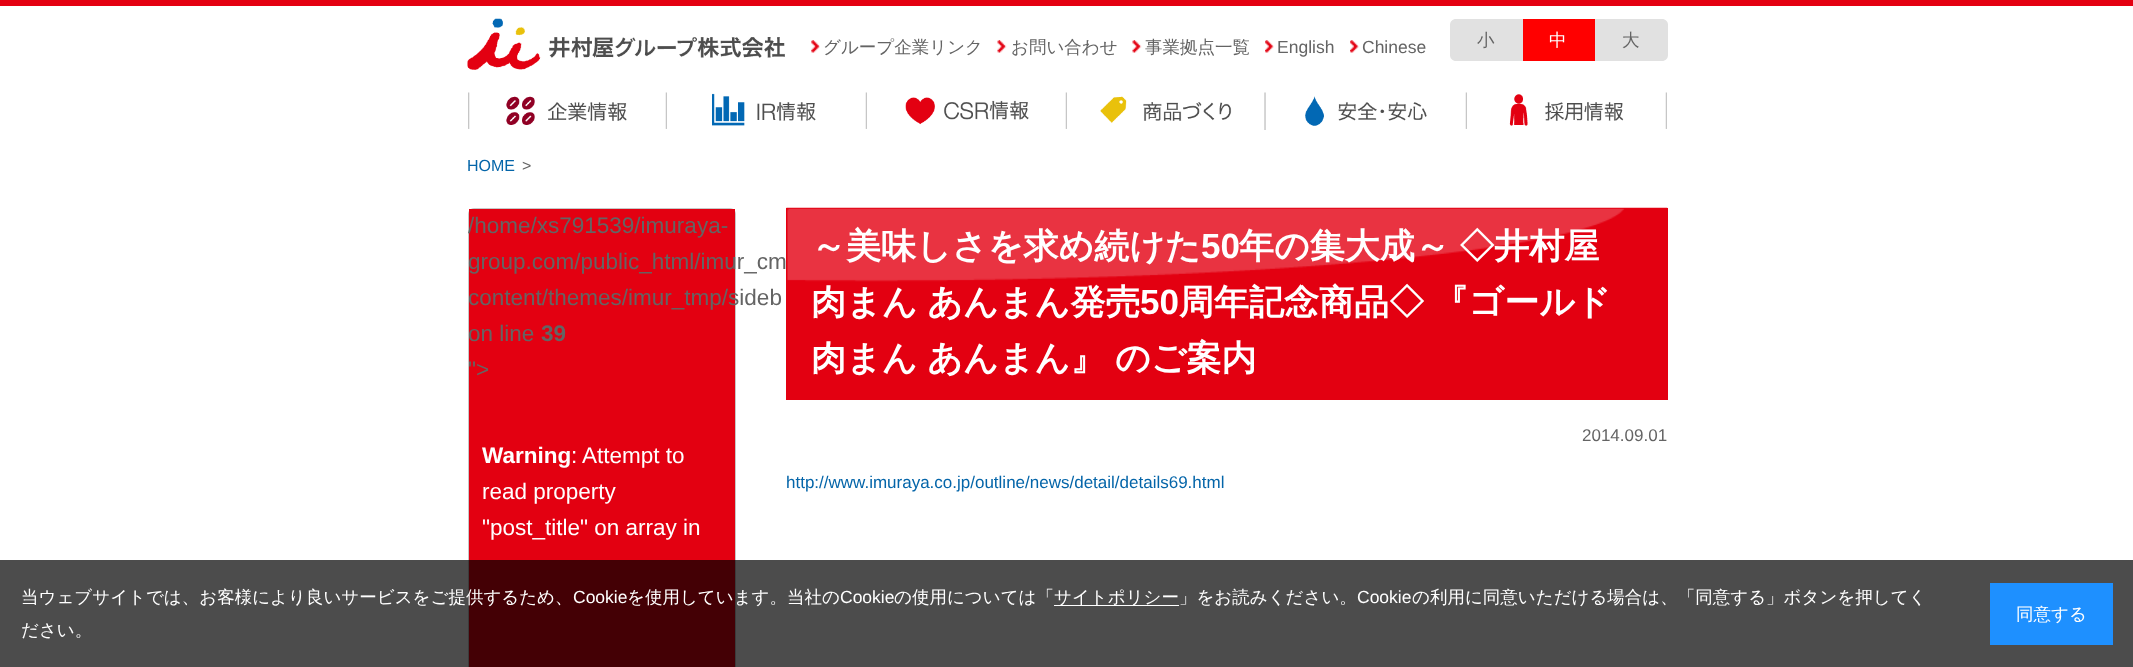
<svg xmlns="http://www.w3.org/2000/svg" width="2133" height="667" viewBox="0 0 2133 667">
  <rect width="100%" height="100%" fill="#fff"/>
  <path d="M0 0h2133v6H0z" fill="#e40011"/>
  <image x="467" y="18" width="318" height="52" href="img/1.png"/>
  <image x="811" y="40" width="9" height="13" href="img/2.png"/>
  <image x="997" y="40" width="10" height="13" href="img/3.png"/>
  <image x="1132" y="40" width="10" height="13" href="img/3.png"/>
  <image x="1265" y="40" width="9" height="13" href="img/4.png"/>
  <image x="1350" y="40" width="9" height="13" href="img/4.png"/>
  <path d="M1456 19H1523V61H1456C1452.5 61 1450 58.5 1450 55V25C1450 21.5 1452.5 19 1456 19Z" fill="#e1e1e1"/>
  <path d="M1523 19h72v42H1523z" fill="#f00"/>
  <path d="M1595 19H1662C1665.5 19 1668 21.5 1668 25V55C1668 58.5 1665.5 61 1662 61H1595Z" fill="#e1e1e1"/>
  <image x="468" y="92" width="199" height="37" href="img/5.png"/>
  <image x="712" y="92" width="155" height="37" href="img/6.png"/>
  <image x="905" y="92" width="162" height="37" href="img/7.png"/>
  <image x="1100" y="92" width="166" height="38" href="img/8.png"/>
  <image x="1305" y="92" width="162" height="37" href="img/9.png"/>
  <image x="1509" y="92" width="158" height="37" href="img/10.png"/>
  <path d="M474 208.5H730C733 208.5 735.5 211 735.5 214V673.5H468.5V214C468.5 211 471 208.5 474 208.5Z" fill="none" stroke="#c7c7c7"/>
  <path d="M469 209h266v458H469z" fill="#e30011"/>
  <path d="M786 208h882v192H786z" fill="#e30011"/>
  <image x="786" y="207" width="882" height="75" href="img/11.png"/>
  <path d="M0 560h2133v107H0z" fill="#000000b3"/>
  <path d="M1054 605h125v1H1054z" fill="#fff"/>
  <path d="M1990 583h123v62H1990z" fill="#1e90ff"/>
  <g font-family="WenQuanYi Zen Hei" font-size="17.5" font-weight="500" fill="#646464">
    <text x="823" y="53">グループ企業リンク</text>
    <text x="1011" y="53">お問い合わせ</text>
    <text x="1145" y="53">事業拠点一覧</text>
  </g>
  <g font-family="Liberation Sans" font-size="17.5" fill="#646464">
    <text x="1277" y="53">English</text>
    <text x="1362" y="53">Chinese</text>
  </g>
  <text x="1477" y="46" font-family="WenQuanYi Zen Hei" font-size="17.5" font-weight="500" fill="#646464">小</text>
  <text x="1549" y="46" font-family="WenQuanYi Zen Hei" font-size="17.5" font-weight="500" fill="#fff">中</text>
  <text x="1622" y="46" font-family="WenQuanYi Zen Hei" font-size="17.5" font-weight="500" fill="#646464">大</text>
  <text x="467" y="171" font-family="Liberation Sans" font-size="16" fill="#0465a9">HOME</text>
  <text x="522" y="171" font-family="Liberation Sans" font-size="16" fill="#646464">&gt;</text>
  <g font-family="Liberation Sans" font-size="22.5" fill="#646464">
    <text x="468" y="233">/home/xs791539/imuraya-</text>
    <text x="468" y="269">group.com/public_html/imur_cm</text>
    <text x="468" y="305">content/themes/imur_tmp/sideb</text>
    <text x="468" y="341">on line</text>
  </g>
  <text x="541" y="341" font-family="Liberation Sans" font-size="22.5" font-weight="bold" fill="#646464">39</text>
  <text x="468" y="377" font-family="Liberation Sans" font-size="22.5" fill="#646464">"&gt;</text>
  <text x="482" y="463" font-family="Liberation Sans" font-size="22.5" font-weight="bold" fill="#fff">Warning</text>
  <g font-family="Liberation Sans" font-size="22.5" fill="#fff">
    <text x="571" y="463">:</text>
    <text x="582" y="463">Attempt to</text>
    <text x="482" y="499">read property</text>
    <text x="482" y="535">"post_title" on array in</text>
  </g>
  <text x="811" y="258" font-family="WenQuanYi Zen Hei" font-size="35" font-weight="bold" fill="#fff">～美味しさを求め続けた</text>
  <text x="1201" y="258" font-family="Liberation Sans" font-size="35" font-weight="bold" fill="#fff">50</text>
  <g font-family="WenQuanYi Zen Hei" font-size="35" font-weight="bold" fill="#fff">
    <text x="1239" y="258" word-spacing="-1">年の集大成～ ◇井村屋</text>
    <text x="811" y="314" word-spacing="-1">肉まん あんまん発売</text>
  </g>
  <text x="1140" y="314" font-family="Liberation Sans" font-size="35" font-weight="bold" fill="#fff">50</text>
  <g font-family="WenQuanYi Zen Hei" font-size="35" font-weight="bold" fill="#fff">
    <text x="1179" y="314" word-spacing="-1">周年記念商品◇ 『ゴールド</text>
    <text x="811" y="370" word-spacing="-1">肉まん あんまん』 のご案内</text>
  </g>
  <text x="1582" y="441" font-family="Liberation Sans" font-size="17" fill="#646464">2014.09.01</text>
  <text x="786" y="488" font-family="Liberation Sans" font-size="17" fill="#0465a9">http://www.imuraya.co.jp/outline/news/detail/details69.html</text>
  <text x="21" y="603" font-family="WenQuanYi Zen Hei" font-size="17.5" font-weight="500" fill="#fff">当ウェブサイトでは、お客様により良いサービスをご提供するため、</text>
  <text x="573" y="603" font-family="Liberation Sans" font-size="17.5" fill="#fff">Cookie</text>
  <text x="627" y="603" font-family="WenQuanYi Zen Hei" font-size="17.5" font-weight="500" fill="#fff">を使用しています。当社の</text>
  <text x="840" y="603" font-family="Liberation Sans" font-size="17.5" fill="#fff">Cookie</text>
  <g font-family="WenQuanYi Zen Hei" font-size="17.5" font-weight="500" fill="#fff">
    <text x="894" y="603">の使用については「</text>
    <text x="1054" y="603">サイトポリシー」をお読みください。</text>
  </g>
  <text x="1357" y="603" font-family="Liberation Sans" font-size="17.5" fill="#fff">Cookie</text>
  <g font-family="WenQuanYi Zen Hei" font-size="17.5" font-weight="500" fill="#fff">
    <text x="1412" y="603">の利用に同意いただける場合は、「同意する」ボタンを押してく</text>
    <text x="21" y="636">ださい。</text>
    <text x="2016" y="620">同意する</text>
  </g>
</svg>
